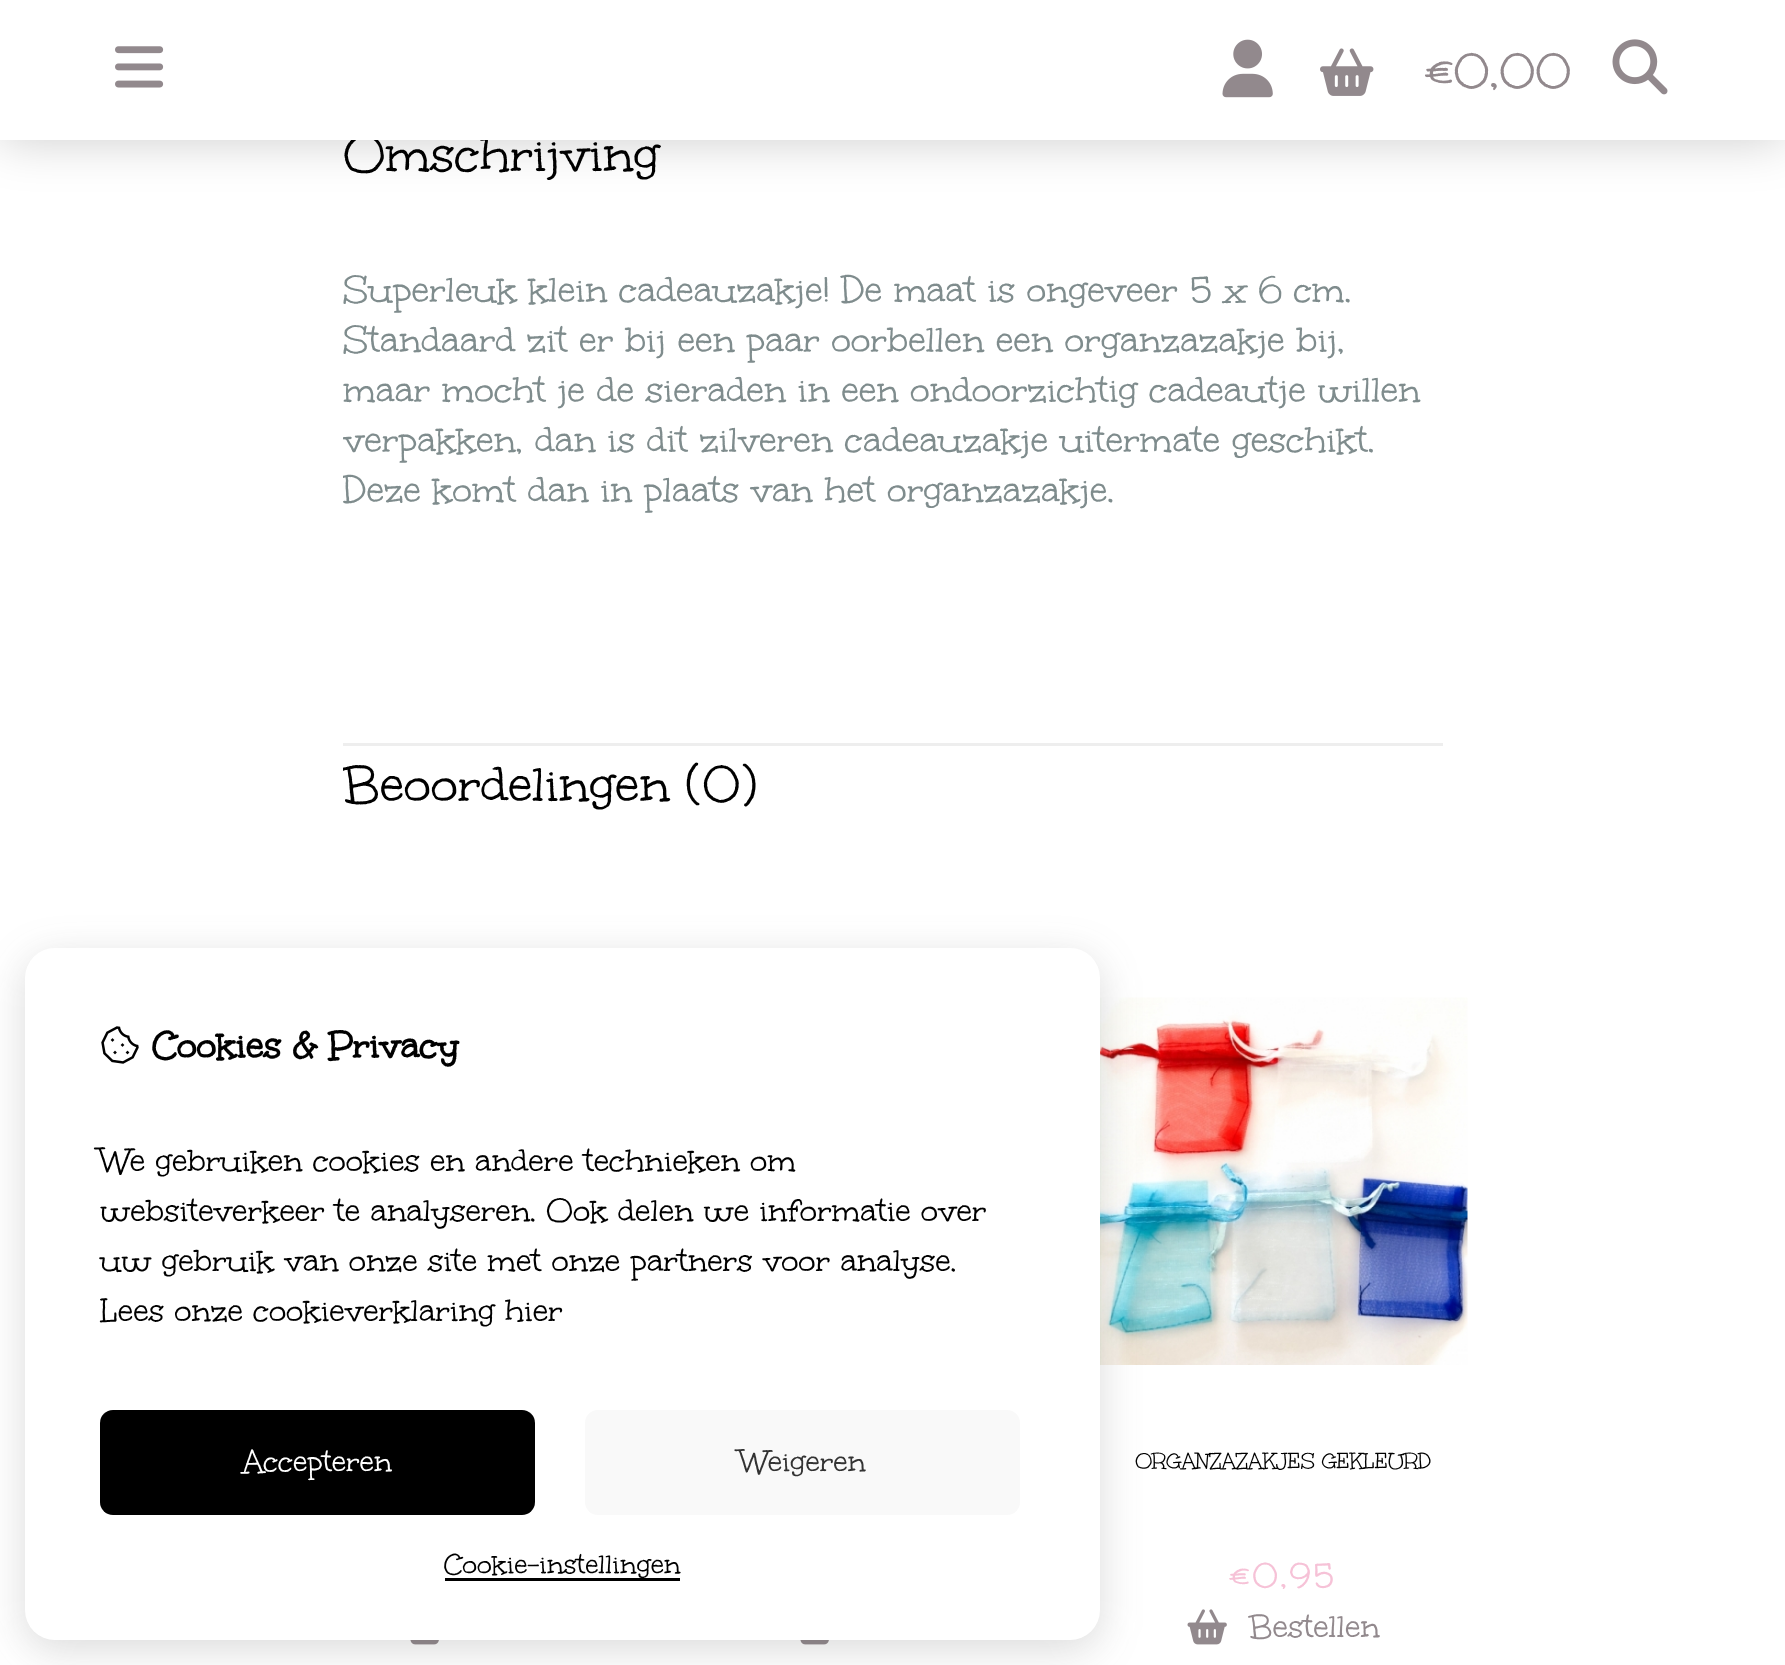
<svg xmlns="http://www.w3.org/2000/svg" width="1785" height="1665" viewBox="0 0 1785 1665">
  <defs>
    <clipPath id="clip1"><path d="M343 118h1100v705H343z"/></clipPath>
  </defs>
  <rect width="100%" height="100%" fill="#fff"/>
  <path d="M0 0h1785v140H0z" fill="#00000033" filter="blur(25px)"/>
  <path d="M343 743h1100v3H343z" fill="#eee"/>
  <image x="1100" y="997" width="368" height="368" href="img/5.png"/>
  <image x="1187" y="1609" width="40" height="36" href="img/6.png"/>
  <image x="410" y="1640" width="29" height="5" href="img/7.png"/>
  <image x="800" y="1640" width="29" height="5" href="img/7.png"/>
  <rect x="25" y="958" width="1075" height="692" rx="30" fill="#4c4c4c33" filter="blur(21px)"/>
  <rect x="25" y="948" width="1075" height="692" rx="30" fill="#fff"/>
  <image x="101" y="1026" width="38" height="38" href="img/8.png"/>
  <rect x="100" y="1410" width="435" height="105" rx="13" fill="#000"/>
  <rect x="585" y="1410" width="435" height="105" rx="13" fill="#f9f9f9"/>
  <path d="M445 1578h235v3H445z" fill="#000"/>
  <text x="343" y="174" font-family="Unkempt" font-size="55" fill="#000">Omschrijving</text>
  <path d="M0 0h1785v140H0z" fill="#fff"/>
  <text x="1426" y="90" font-family="Unkempt" font-size="52.5" fill="#92898d">€0,00</text>
  <image x="1320" y="48" width="54" height="48" href="img/3.png"/>
  <image x="1222" y="39" width="51" height="59" href="img/2.png"/>
  <image x="1612" y="39" width="56" height="56" href="img/4.png"/>
  <image x="115" y="46" width="49" height="42" href="img/1.png"/>
  <g font-family="Unkempt" font-size="40" fill="#7f8c8d">
    <text x="343" y="304">Superleuk klein cadeauzakje! De maat is ongeveer 5 x 6 cm.</text>
    <text x="343" y="354">Standaard zit er bij een paar oorbellen een organzazakje bij,</text>
    <text x="343" y="404">maar mocht je de sieraden in een ondoorzichtig cadeautje willen</text>
  </g>
  <g clip-path="url(#clip1)">
    <g font-family="Unkempt" font-size="40" fill="#7f8c8d">
      <text x="343" y="454">verpakken, dan is dit zilveren cadeauzakje uitermate geschikt.</text>
      <text x="343" y="504">Deze komt dan in plaats van het organzazakje.</text>
    </g>
    <text x="343" y="804" font-family="Unkempt" font-size="55" fill="#000">Beoordelingen (0)</text>
  </g>
  <text x="1135" y="1469" font-family="Unkempt" font-size="22.5" fill="#000">ORGANZAZAKJES GEKLEURD</text>
  <text x="1230" y="1589" font-family="Unkempt" font-size="37.5" letter-spacing="2.5" fill="#f6c2d7">€0,95</text>
  <text x="1249" y="1639" font-family="Unkempt" font-size="35" fill="#92898d">Bestellen</text>
  <text x="152" y="1060" font-family="Unkempt" font-size="40" font-weight="bold" fill="#000">Cookies &amp; Privacy</text>
  <g font-family="Unkempt" font-size="35" fill="#000">
    <text x="100" y="1173">We gebruiken cookies en andere technieken om</text>
    <text x="100" y="1223">websiteverkeer te analyseren. Ook delen we informatie over</text>
    <text x="100" y="1273">uw gebruik van onze site met onze partners voor analyse.</text>
    <text x="100" y="1323">Lees onze cookieverklaring hier</text>
  </g>
  <text x="243" y="1473" font-family="Unkempt" font-size="32.5" fill="#fff">Accepteren</text>
  <text x="740" y="1473" font-family="Unkempt" font-size="32.5" fill="#333">Weigeren</text>
  <text x="444" y="1575" font-family="Unkempt" font-size="30" fill="#000">Cookie-instellingen</text>
</svg>
